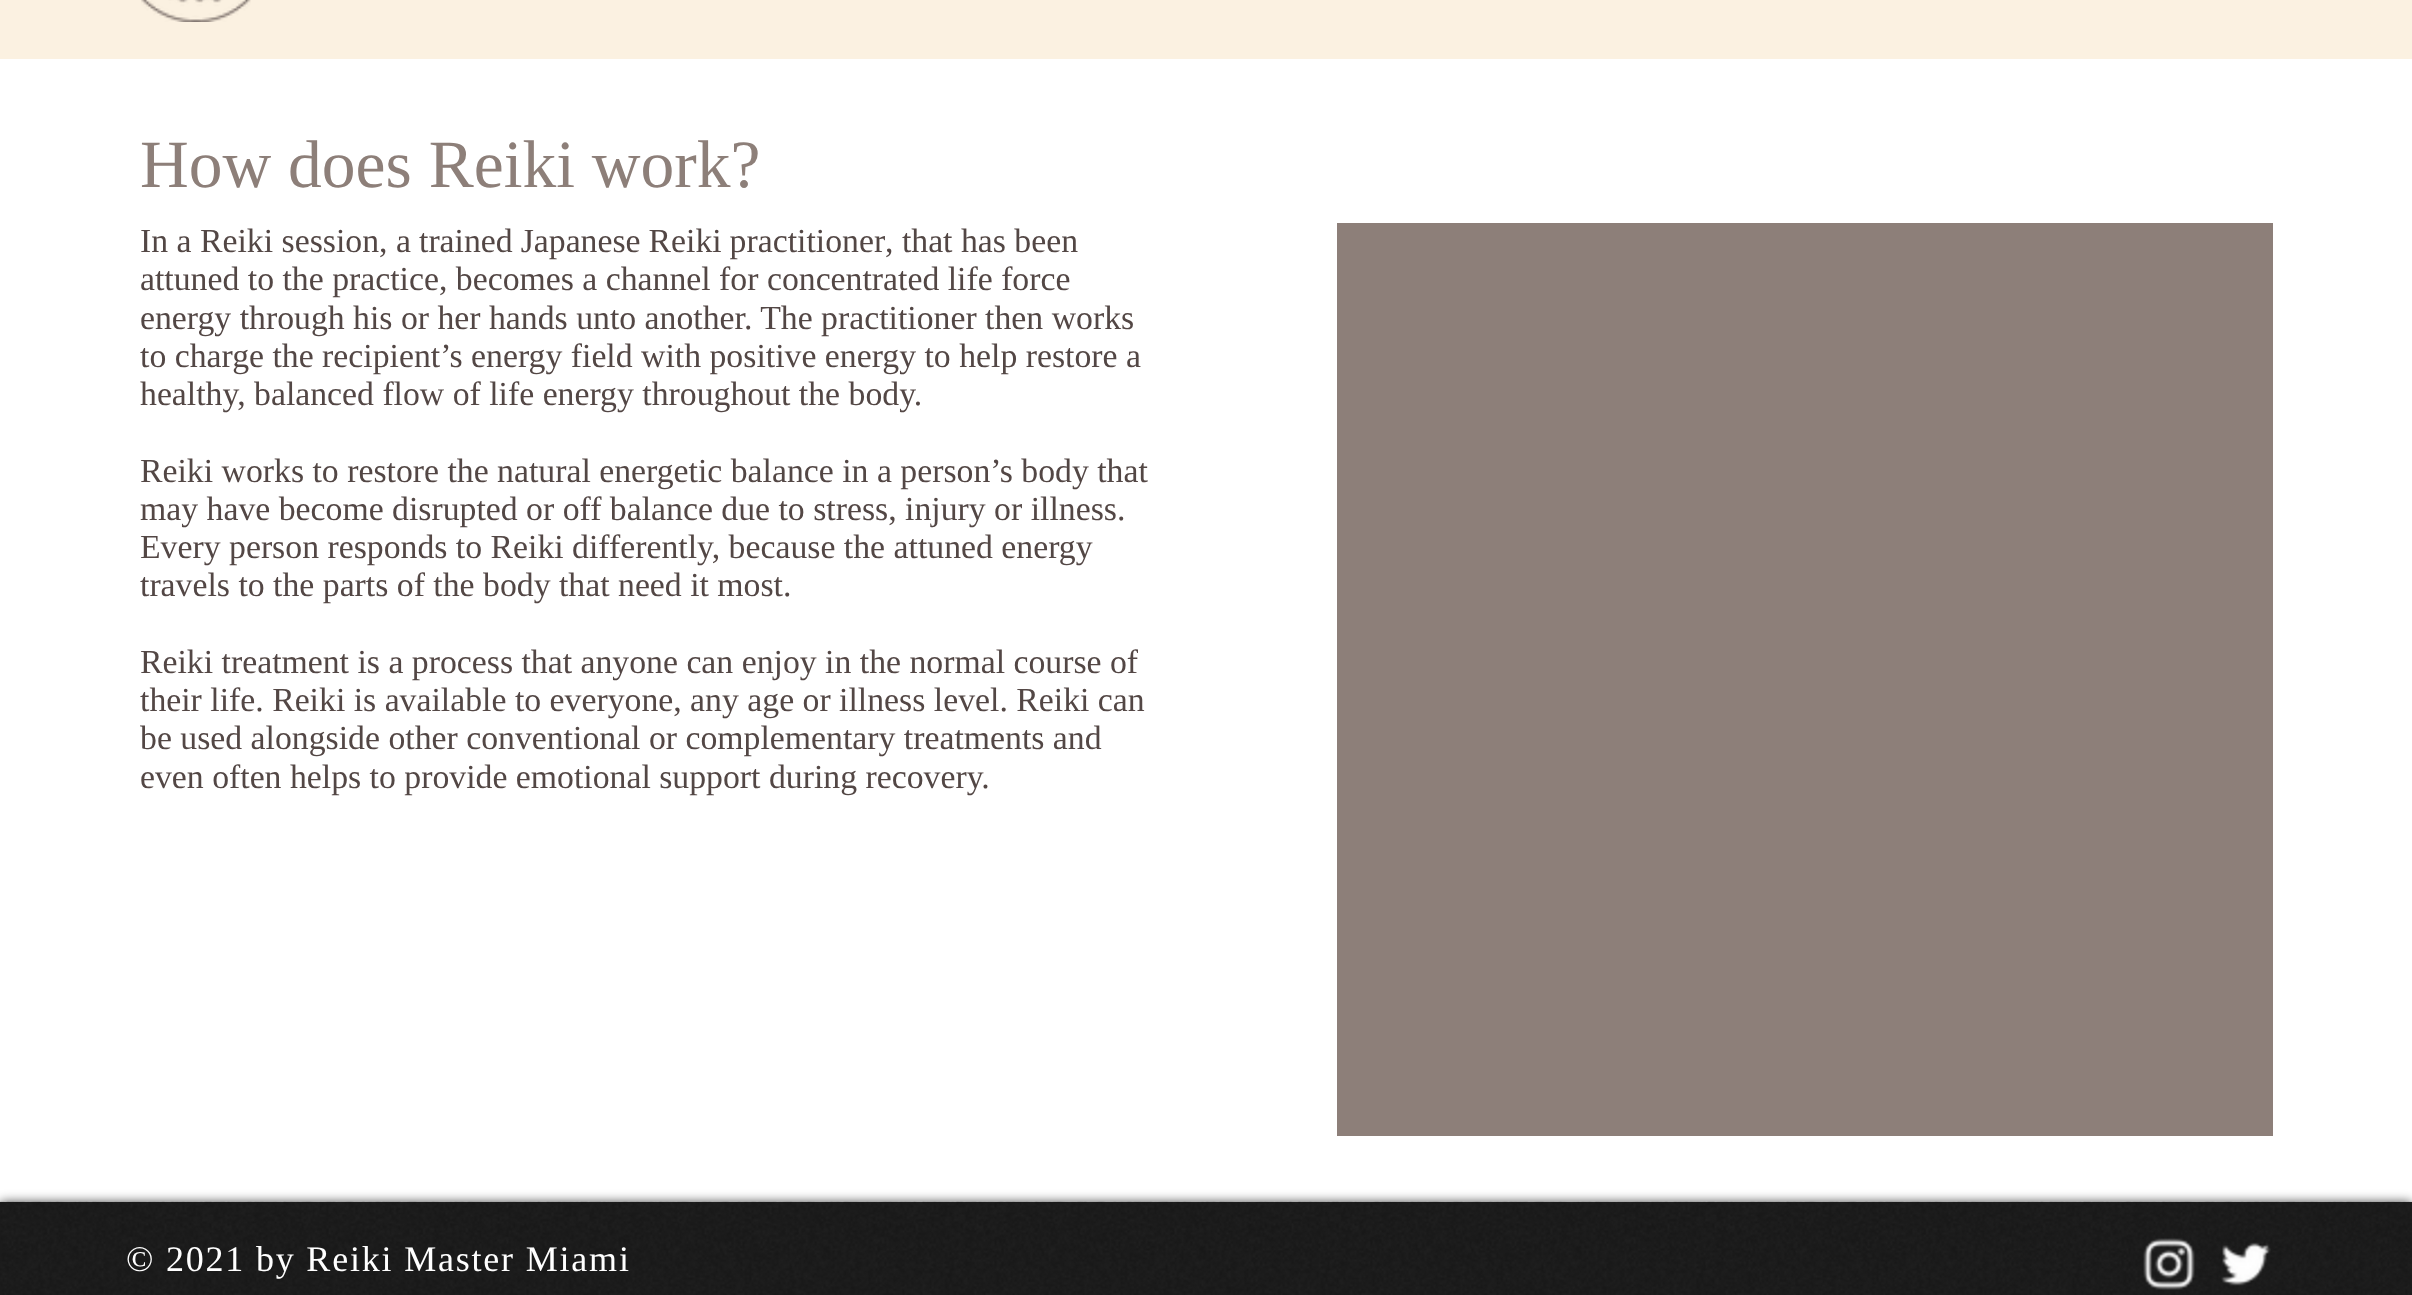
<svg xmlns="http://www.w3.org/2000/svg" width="2412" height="1295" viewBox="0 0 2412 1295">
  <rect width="100%" height="100%" fill="#fff"/>
  <path d="M0 0h2412v59H0z" fill="#fbf1e1"/>
  <image x="141" y="0" width="110" height="22" href="img/1.png"/>
  <path d="M1337 223h936v913H1337z" fill="#8d7f79"/>
  <path d="M0 1202h2412v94H0z" fill="#000000b3" filter="blur(5.5px)"/>
  <path d="M0 1202h2412v93H0z" fill="#1a1a1a"/>
  <image x="0" y="1201" width="2412" height="94" href="img/2.png"/>
  <image x="2143" y="1238" width="52" height="52" href="img/3.png"/>
  <image x="2221" y="1242" width="50" height="44" href="img/4.png"/>
  <text x="140" y="187" font-family="Liberation Serif" font-size="67.5" fill="#8d7f79">How does Reiki work?</text>
  <g font-family="Liberation Serif" font-size="33.75" fill="#534745">
    <text x="140" y="252">In a Reiki session, a</text>
    <text x="419" y="252" word-spacing="-0.5">trained Japanese Reiki practitioner</text>
    <text x="885" y="252">, that has been</text>
    <text x="140" y="290">attuned to the practice, becomes a channel for concentrated life force</text>
    <text x="140" y="329">energy through his or her hands unto another. The practitioner then works</text>
    <text x="140" y="367">to charge the recipient’s energy field with positive energy to help restore a</text>
    <text x="140" y="405">healthy, balanced flow of life energy throughout the body.</text>
    <text x="140" y="482">Reiki works to restore the natural energetic balance in a person’s body that</text>
    <text x="140" y="520">may have become disrupted or off balance due to stress, injury or illness.</text>
    <text x="140" y="558">Every person responds to Reiki differently, because the attuned energy</text>
    <text x="140" y="596">travels to the parts of the body that need it most.</text>
    <text x="140" y="673">Reiki treatment is a process that anyone can enjoy in the normal course of</text>
    <text x="140" y="711">their life. Reiki is available to everyone, any age or illness level. Reiki can</text>
    <text x="140" y="749">be used alongside other conventional or complementary treatments and</text>
    <text x="140" y="788">even often helps to provide emotional support during recovery.</text>
  </g>
  <text x="126" y="1271" font-family="Liberation Serif" font-size="36" letter-spacing="1.8" fill="#fff">© 2021 by Reiki Master Miami</text>
</svg>
